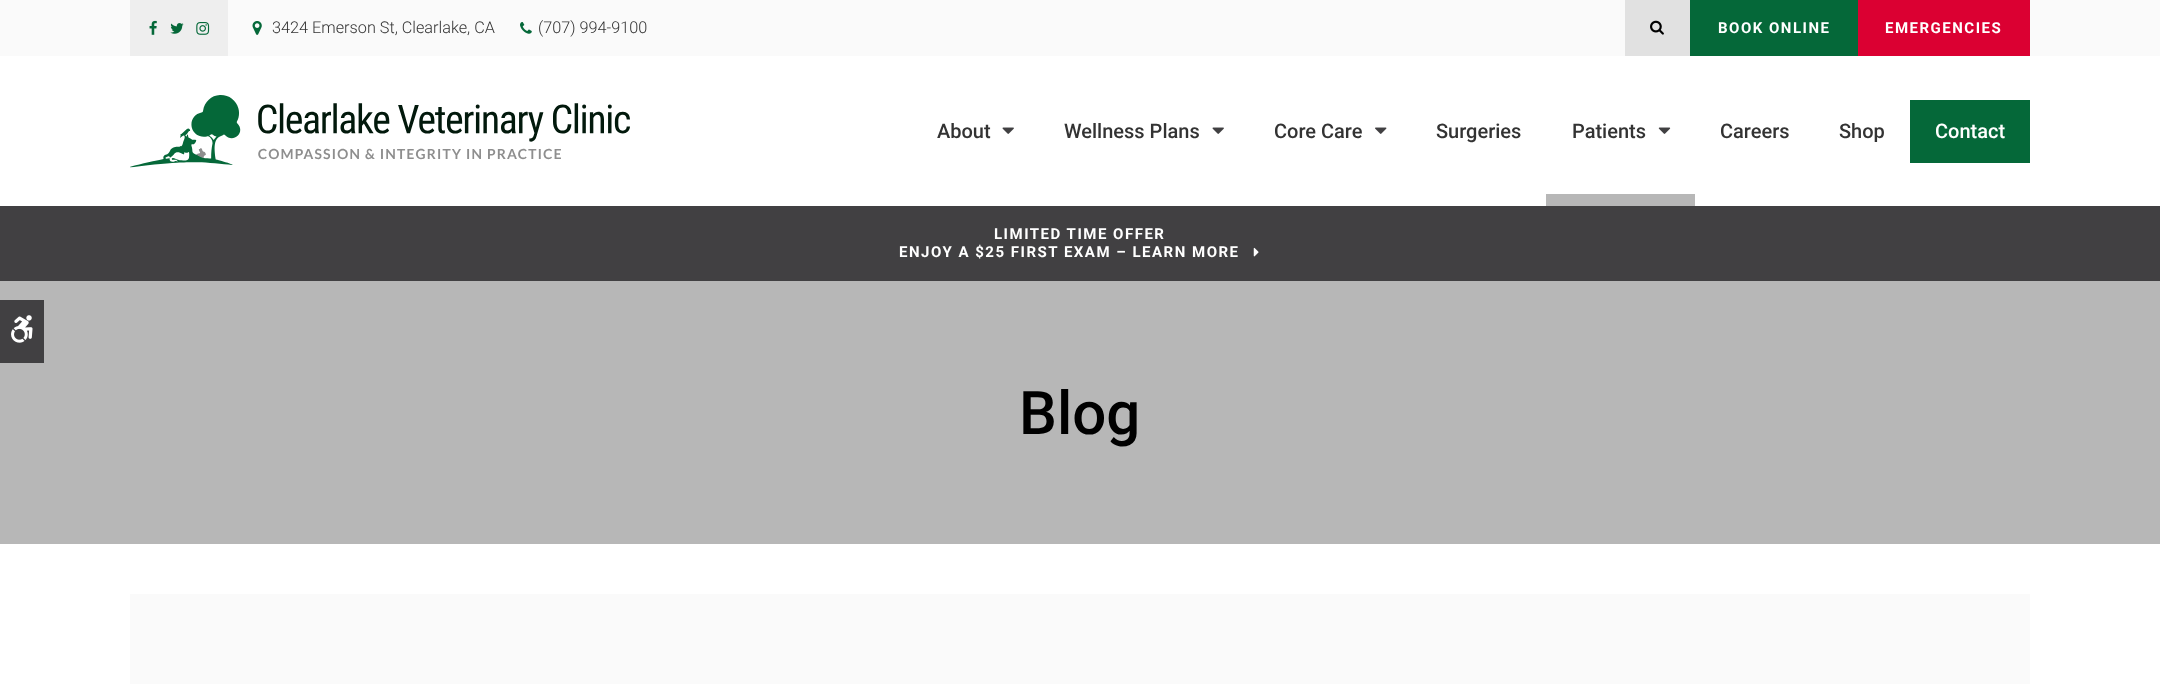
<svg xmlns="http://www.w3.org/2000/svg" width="2160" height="684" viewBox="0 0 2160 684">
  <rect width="100%" height="100%" fill="#fff"/>
  <path d="M0 0h2160v56H0z" fill="#fafafa"/>
  <path d="M130 0h98v56H130z" fill="#eee"/>
  <image x="149" y="20" width="8" height="15" href="img/1.png"/>
  <image x="170" y="23" width="14" height="11" href="img/2.png"/>
  <image x="196" y="22" width="14" height="13" href="img/3.png"/>
  <image x="252" y="21" width="10" height="14" href="img/4.png"/>
  <image x="520" y="22" width="12" height="12" href="img/5.png"/>
  <path d="M1625 0h65v56H1625z" fill="#e1e1e1"/>
  <image x="1650" y="20" width="14" height="15" href="img/6.png"/>
  <path d="M1690 0h168v56H1690z" fill="#056839"/>
  <path d="M1858 0h172v56H1858z" fill="#db0032"/>
  <image x="130" y="95" width="500" height="73" href="img/7.png"/>
  <image x="1002" y="127" width="12" height="7" href="img/8.png"/>
  <image x="1212" y="127" width="12" height="7" href="img/8.png"/>
  <image x="1375" y="127" width="12" height="7" href="img/9.png"/>
  <path d="M1546 194h149v12H1546z" fill="#b7b7b7"/>
  <image x="1658" y="127" width="13" height="7" href="img/10.png"/>
  <path d="M1910 100h120v63H1910z" fill="#056839"/>
  <path d="M0 281h2160v263H0z" fill="#b7b7b7"/>
  <path d="M0 300h44v63H0z" fill="#414042"/>
  <image x="11" y="315" width="22" height="28" href="img/11.png"/>
  <path d="M0 206h2160v75H0z" fill="#414042"/>
  <image x="1253" y="247" width="6" height="10" href="img/12.png"/>
  <path d="M130 594h1900v90H130z" fill="#fafafa"/>
  <g font-family="Roboto" font-size="16.25" font-weight="300" fill="#333">
    <text x="272" y="33">3424 Emerson St, Clearlake, CA</text>
    <text x="538" y="33">(707) 994-9100</text>
  </g>
  <g font-family="Roboto" font-size="15" font-weight="bold" letter-spacing="1.5" fill="#fff">
    <text x="1718" y="33">BOOK ONLINE</text>
    <text x="1885" y="33">EMERGENCIES</text>
  </g>
  <g font-family="Roboto" font-size="20" font-weight="500" fill="#333">
    <text x="937" y="138">About</text>
    <text x="1064" y="138">Wellness Plans</text>
    <text x="1274" y="138">Core Care</text>
    <text x="1436" y="138">Surgeries</text>
    <text x="1572" y="138">Patients</text>
    <text x="1720" y="138">Careers</text>
    <text x="1839" y="138">Shop</text>
  </g>
  <text x="1935" y="138" font-family="Roboto" font-size="20" font-weight="500" fill="#fff">Contact</text>
  <g font-family="Roboto" font-size="15" font-weight="bold" letter-spacing="1.5" fill="#fff">
    <text x="994" y="239">LIMITED TIME OFFER</text>
    <text x="899" y="257">ENJOY A $25 FIRST EXAM – LEARN MORE</text>
  </g>
  <text x="1019" y="434" font-family="Roboto" font-size="60" font-weight="500" fill="#000">Blog</text>
</svg>
